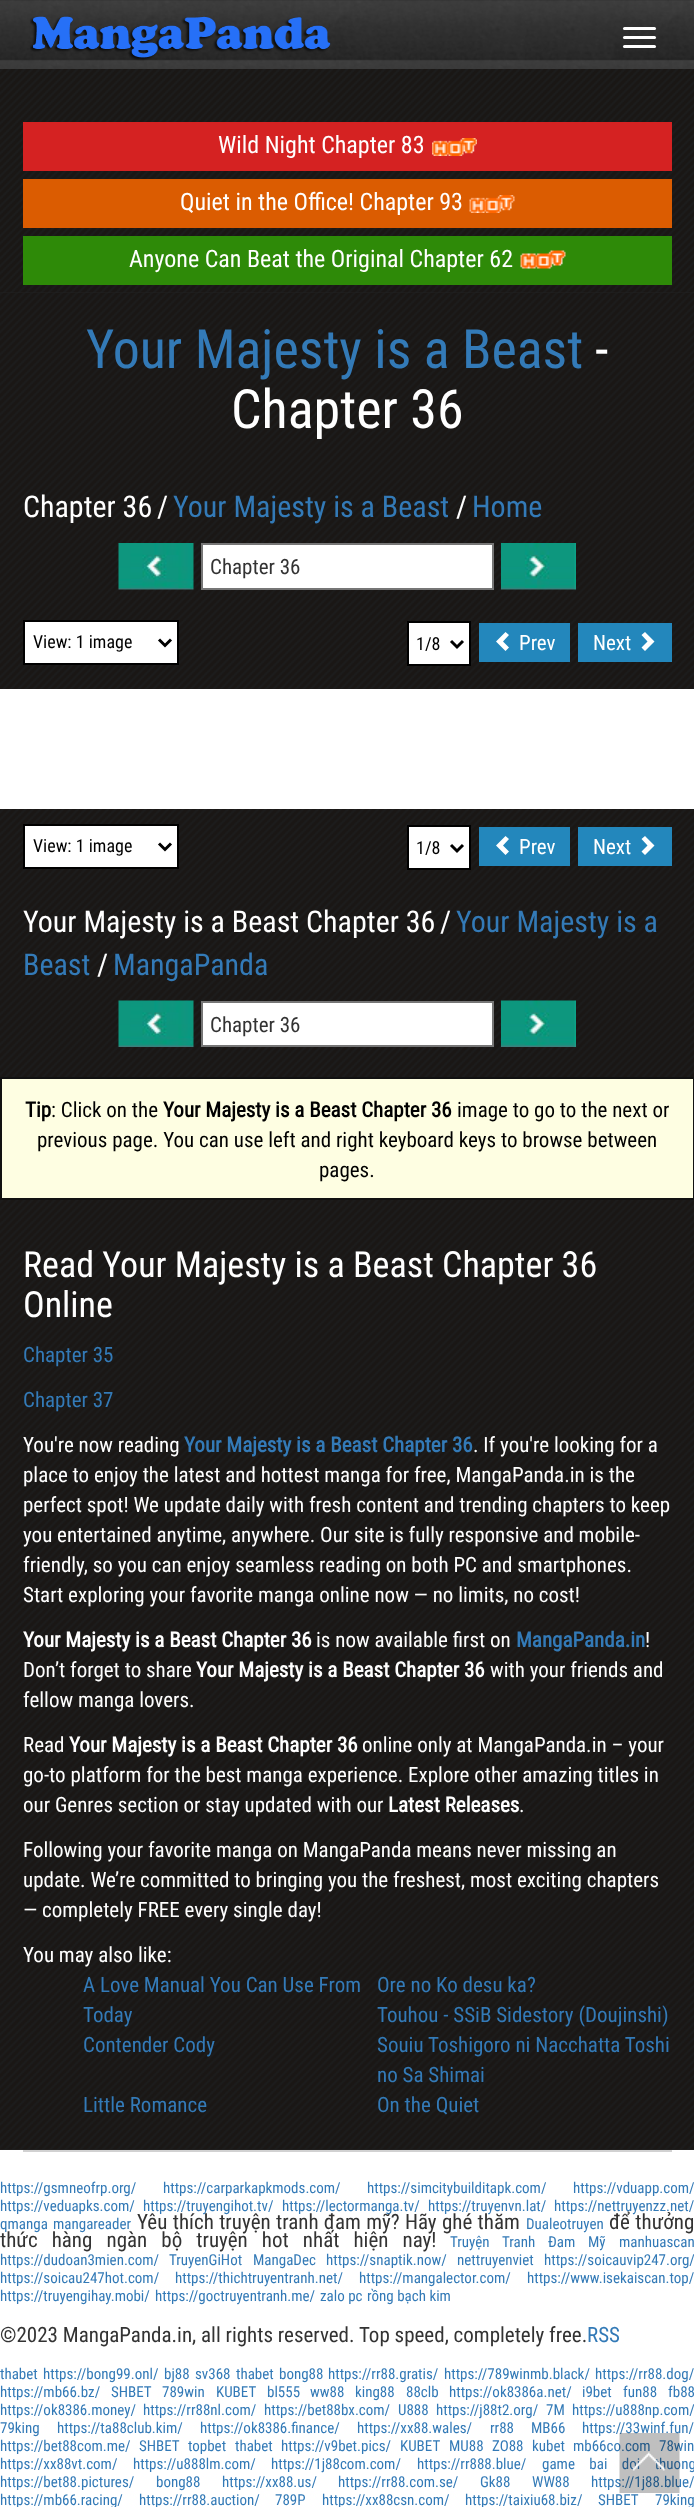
<svg xmlns="http://www.w3.org/2000/svg" width="694" height="2507" viewBox="0 0 694 2507">
  <rect width="100%" height="100%" fill="#fff"/>
  <image x="0" y="0" width="694" height="69" href="img/1.png"/>
  <image x="30" y="16" width="301" height="45" href="img/2.png"/>
  <rect x="623" y="27" width="33" height="3" rx="1.5" fill="#fff"/>
  <rect x="623" y="36" width="33" height="3" rx="1.5" fill="#fff"/>
  <rect x="623" y="45" width="33" height="3" rx="1.5" fill="#fff"/>
  <path d="M0 292h694v1H0z" fill="#222"/>
  <image x="0" y="69" width="694" height="224" href="img/3.png"/>
  <path d="M23 122h649v49H23z" fill="#d52222"/>
  <image x="432" y="138" width="45" height="18" href="img/4.png"/>
  <path d="M23 179h649v49H23z" fill="#db5c01"/>
  <image x="469" y="195" width="46" height="18" href="img/5.png"/>
  <path d="M23 236h649v49H23z" fill="#2e8a08"/>
  <image x="520" y="250" width="46" height="19" href="img/6.png"/>
  <path d="M0 2149h694v1H0z" fill="#222"/>
  <image x="0" y="293" width="694" height="1857" href="img/7.png"/>
  <image x="118" y="543" width="76" height="47" href="img/8.png"/>
  <path d="M202 544h291v45H202z" fill="#fff" stroke="#767676" stroke-width="2"/>
  <image x="501" y="543" width="75" height="47" href="img/9.png"/>
  <path d="M24 621h154v43H24z" fill="#fff" stroke="#000" stroke-width="2"/>
  <path d="M159 639.5L165 645.5L171 639.5" fill="none" stroke="#000" stroke-width="3"/>
  <path d="M408 622h62v43H408z" fill="#fff" stroke="#000" stroke-width="2"/>
  <path d="M451 641L457 647L463 641" fill="none" stroke="#000" stroke-width="3"/>
  <path d="M479 623h91v39H479z" fill="#2387bc"/>
  <path d="M509 635L503 641.5L509 647.5L505.5 651L496 641.5L505.5 632Z" fill="#fff"/>
  <path d="M578 623h94v39H578z" fill="#2387bc"/>
  <path d="M654.5 641.5L645 651L641.5 647.5L647.5 641.5L641.5 635L645 632Z" fill="#fff"/>
  <path d="M0 689h694v120H0z" fill="#fff"/>
  <path d="M24 825h154v43H24z" fill="#fff" stroke="#000" stroke-width="2"/>
  <path d="M159 843.5L165 849.5L171 843.5" fill="none" stroke="#000" stroke-width="3"/>
  <path d="M408 826h62v43H408z" fill="#fff" stroke="#000" stroke-width="2"/>
  <path d="M451 845L457 851L463 845" fill="none" stroke="#000" stroke-width="3"/>
  <path d="M479 827h91v39H479z" fill="#2387bc"/>
  <path d="M509 839L503 845.5L509 851.5L505.5 855L496 845.5L505.5 836Z" fill="#fff"/>
  <path d="M578 827h94v39H578z" fill="#2387bc"/>
  <path d="M654.5 845.5L645 855L641.5 851.5L647.5 845.5L641.5 839L645 836Z" fill="#fff"/>
  <image x="118" y="1000" width="76" height="47" href="img/10.png"/>
  <path d="M202 1002h291v44H202z" fill="#fff" stroke="#767676" stroke-width="2"/>
  <image x="501" y="1000" width="75" height="47" href="img/11.png"/>
  <path d="M1 1078h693v121H1z" fill="#fefee2" stroke="#111" stroke-width="2"/>
  <path d="M23 2150h649v2H23z" fill="#d1d1d1"/>
  <g font-family="Roboto Condensed" font-size="24" fill="#fff">
    <text x="218" y="153">Wild Night Chapter 83</text>
    <text x="180" y="210">Quiet in the Office! Chapter 93</text>
    <text x="129" y="267">Anyone Can Beat the Original Chapter 62</text>
  </g>
  <text x="86" y="368" font-family="Roboto Condensed" font-size="54" fill="#337ab7">Your Majesty is a Beast</text>
  <g font-family="Roboto Condensed" font-size="54" fill="#fff">
    <text x="595" y="368">-</text>
    <text x="231" y="428">Chapter 36</text>
  </g>
  <g font-family="Roboto Condensed" font-size="30" fill="#fff">
    <text x="23" y="517">Chapter 36</text>
    <text x="157" y="517">/</text>
  </g>
  <text x="173" y="517" font-family="Roboto Condensed" font-size="30" fill="#337ab7">Your Majesty is a Beast</text>
  <text x="456" y="517" font-family="Roboto Condensed" font-size="30" fill="#fff">/</text>
  <text x="472" y="517" font-family="Roboto Condensed" font-size="30" fill="#337ab7">Home</text>
  <text x="210" y="574" font-family="Roboto Condensed" font-size="21" fill="#333">Chapter 36</text>
  <g font-family="Roboto Condensed" font-size="18" fill="#000">
    <text x="33" y="648">View: 1 image</text>
    <text x="416" y="650">1/8</text>
  </g>
  <g font-family="Roboto Condensed" font-size="21" fill="#fff">
    <text x="519" y="650">Prev</text>
    <text x="593" y="650">Next</text>
  </g>
  <g font-family="Roboto Condensed" font-size="18" fill="#000">
    <text x="33" y="852">View: 1 image</text>
    <text x="416" y="854">1/8</text>
  </g>
  <g font-family="Roboto Condensed" font-size="21" fill="#fff">
    <text x="519" y="854">Prev</text>
    <text x="593" y="854">Next</text>
  </g>
  <g font-family="Roboto Condensed" font-size="30" fill="#fff">
    <text x="23" y="932">Your Majesty is a Beast Chapter 36</text>
    <text x="440" y="932">/</text>
  </g>
  <g font-family="Roboto Condensed" font-size="30" fill="#337ab7">
    <text x="456" y="932">Your Majesty is a</text>
    <text x="23" y="975">Beast</text>
  </g>
  <text x="97" y="975" font-family="Roboto Condensed" font-size="30" fill="#fff">/</text>
  <text x="113" y="975" font-family="Roboto Condensed" font-size="30" fill="#337ab7">MangaPanda</text>
  <text x="210" y="1032" font-family="Roboto Condensed" font-size="21" fill="#333">Chapter 36</text>
  <text x="25" y="1117" font-family="Roboto Condensed" font-size="21" font-weight="bold" fill="#000">Tip</text>
  <text x="51" y="1117" font-family="Roboto Condensed" font-size="21" fill="#000">: Click on the</text>
  <text x="163" y="1117" font-family="Roboto Condensed" font-size="21" font-weight="bold" fill="#000">Your Majesty is a Beast Chapter 36</text>
  <g font-family="Roboto Condensed" font-size="21" fill="#000">
    <text x="457" y="1117">image to go to the next or</text>
    <text x="37" y="1147">previous page. You can use left and right keyboard keys to browse between</text>
    <text x="319" y="1177">pages.</text>
  </g>
  <g font-family="Roboto Condensed" font-size="36" fill="#fff">
    <text x="23" y="1277">Read Your Majesty is a Beast Chapter 36</text>
    <text x="23" y="1317">Online</text>
  </g>
  <g font-family="Roboto Condensed" font-size="21" fill="#337ab7">
    <text x="23" y="1362">Chapter 35</text>
    <text x="23" y="1407">Chapter 37</text>
  </g>
  <text x="23" y="1452" font-family="Roboto Condensed" font-size="21" fill="#fff">You're now reading</text>
  <text x="184" y="1452" font-family="Roboto Condensed" font-size="21" font-weight="bold" fill="#337ab7">Your Majesty is a Beast Chapter 36</text>
  <g font-family="Roboto Condensed" font-size="21" fill="#fff">
    <text x="473" y="1452">. If you're looking for a</text>
    <text x="23" y="1482">place to enjoy the latest and hottest manga for free, MangaPanda.in is the</text>
    <text x="23" y="1512">perfect spot! We update daily with fresh content and trending chapters to keep</text>
    <text x="23" y="1542">you entertained anytime, anywhere. Our site is fully responsive and mobile-</text>
    <text x="23" y="1572">friendly, so you can enjoy seamless reading on both PC and smartphones.</text>
    <text x="23" y="1602">Start exploring your favorite manga online now — no limits, no cost!</text>
  </g>
  <text x="23" y="1647" font-family="Roboto Condensed" font-size="21" font-weight="bold" fill="#fff">Your Majesty is a Beast Chapter 36</text>
  <text x="316" y="1647" font-family="Roboto Condensed" font-size="21" fill="#fff">is now available first on</text>
  <text x="516" y="1647" font-family="Roboto Condensed" font-size="21" font-weight="bold" fill="#337ab7">MangaPanda.in</text>
  <g font-family="Roboto Condensed" font-size="21" fill="#fff">
    <text x="645" y="1647">!</text>
    <text x="23" y="1677">Don’t forget to share</text>
  </g>
  <text x="196" y="1677" font-family="Roboto Condensed" font-size="21" font-weight="bold" fill="#fff">Your Majesty is a Beast Chapter 36</text>
  <g font-family="Roboto Condensed" font-size="21" fill="#fff">
    <text x="490" y="1677">with your friends and</text>
    <text x="23" y="1707">fellow manga lovers.</text>
    <text x="23" y="1752">Read</text>
  </g>
  <text x="69" y="1752" font-family="Roboto Condensed" font-size="21" font-weight="bold" fill="#fff">Your Majesty is a Beast Chapter 36</text>
  <g font-family="Roboto Condensed" font-size="21" fill="#fff">
    <text x="362" y="1752">online only at MangaPanda.in – your</text>
    <text x="23" y="1782">go-to platform for the best manga experience. Explore other amazing titles in</text>
    <text x="23" y="1812">our Genres section or stay updated with our</text>
  </g>
  <text x="388" y="1812" font-family="Roboto Condensed" font-size="21" font-weight="bold" fill="#fff">Latest Releases</text>
  <g font-family="Roboto Condensed" font-size="21" fill="#fff">
    <text x="519" y="1812">.</text>
    <text x="23" y="1857">Following your favorite manga on MangaPanda means never missing an</text>
    <text x="23" y="1887">update. We’re committed to bringing you the freshest, most exciting chapters</text>
    <text x="23" y="1917">— completely FREE every single day!</text>
    <text x="23" y="1962">You may also like:</text>
  </g>
  <g font-family="Roboto Condensed" font-size="21" fill="#337ab7">
    <text x="83" y="1992">A Love Manual You Can Use From</text>
    <text x="83" y="2022">Today</text>
    <text x="377" y="1992">Ore no Ko desu ka?</text>
    <text x="377" y="2022">Touhou - SSiB Sidestory (Doujinshi)</text>
    <text x="83" y="2052">Contender Cody</text>
    <text x="377" y="2052">Souiu Toshigoro ni Nacchatta Toshi</text>
    <text x="377" y="2082">no Sa Shimai</text>
    <text x="83" y="2112">Little Romance</text>
    <text x="377" y="2112">On the Quiet</text>
  </g>
  <g font-family="Roboto Condensed" font-size="15" fill="#337ab7">
    <text x="0" y="2193">https://gsmneofrp.org/</text>
    <text x="163" y="2193">https://carparkapkmods.com/</text>
    <text x="367" y="2193">https://simcitybuilditapk.com/</text>
    <text x="573" y="2193">https://vduapp.com/</text>
    <text x="0" y="2211">https://veduapks.com/</text>
    <text x="143" y="2211">https://truyengihot.tv/</text>
    <text x="282" y="2211">https://lectormanga.tv/</text>
    <text x="428" y="2211">https://truyenvn.lat/</text>
    <text x="554" y="2211">https://nettruyenzz.net/</text>
    <text x="0" y="2229">qmanga</text>
    <text x="53" y="2229">mangareader</text>
  </g>
  <text x="137" y="2229" word-spacing="0.5" font-family="Roboto Condensed" font-size="21" fill="#333">Yêu thích truyện tranh đam mỹ? Hãy ghé thăm</text>
  <text x="526" y="2229" font-family="Roboto Condensed" font-size="15" fill="#337ab7">Dualeotruyen</text>
  <g font-family="Roboto Condensed" font-size="21" fill="#333">
    <text x="609" y="2229" word-spacing="0.5">để thưởng</text>
    <text x="0" y="2247" word-spacing="9.25">thức hàng ngàn bộ truyện hot nhất hiện nay!</text>
  </g>
  <g font-family="Roboto Condensed" font-size="15" fill="#337ab7">
    <text x="450" y="2247" word-spacing="9.25">Truyện Tranh Đam Mỹ</text>
    <text x="619" y="2247">manhuascan</text>
    <text x="0" y="2265">https://dudoan3mien.com/</text>
    <text x="169" y="2265">TruyenGiHot</text>
    <text x="253" y="2265">MangaDec</text>
    <text x="326" y="2265">https://snaptik.now/</text>
    <text x="457" y="2265">nettruyenviet</text>
    <text x="544" y="2265">https://soicauvip247.org/</text>
    <text x="0" y="2283">https://soicau247hot.com/</text>
    <text x="175" y="2283">https://thichtruyentranh.net/</text>
    <text x="359" y="2283">https://mangalector.com/</text>
    <text x="527" y="2283">https://www.isekaiscan.top/</text>
    <text x="0" y="2301">https://truyengihay.mobi/</text>
    <text x="155" y="2301">https://goctruyentranh.me/</text>
    <text x="320" y="2301">zalo pc</text>
    <text x="367" y="2301">rồng bạch kim</text>
  </g>
  <text x="0" y="2342" font-family="Roboto Condensed" font-size="21" fill="#333">©2023 MangaPanda.in, all rights reserved. Top speed, completely free.</text>
  <text x="587" y="2342" font-family="Roboto Condensed" font-size="21" fill="#337ab7">RSS</text>
  <g font-family="Roboto Condensed" font-size="15" fill="#337ab7">
    <text x="0" y="2379">thabet</text>
    <text x="43" y="2379">https://bong99.onl/</text>
    <text x="164" y="2379">bj88</text>
    <text x="195" y="2379">sv368</text>
    <text x="236" y="2379">thabet</text>
    <text x="279" y="2379">bong88</text>
    <text x="328" y="2379">https://rr88.gratis/</text>
    <text x="444" y="2379">https://789winmb.black/</text>
    <text x="595" y="2379">https://rr88.dog/</text>
    <text x="0" y="2397">https://mb66.bz/</text>
    <text x="111" y="2397">SHBET</text>
    <text x="162" y="2397">789win</text>
    <text x="216" y="2397">KUBET</text>
    <text x="267" y="2397">bl555</text>
    <text x="310" y="2397">ww88</text>
    <text x="355" y="2397">king88</text>
    <text x="406" y="2397">88clb</text>
    <text x="449" y="2397">https://ok8386a.net/</text>
    <text x="582" y="2397">i9bet</text>
    <text x="623" y="2397">fun88</text>
    <text x="668" y="2397">fb88</text>
    <text x="0" y="2415">https://ok8386.money/</text>
    <text x="143" y="2415">https://rr88nl.com/</text>
    <text x="264" y="2415">https://bet88bx.com/</text>
    <text x="398" y="2415">U888</text>
    <text x="436" y="2415">https://j88t2.org/</text>
    <text x="546" y="2415">7M</text>
    <text x="572" y="2415">https://u888np.com/</text>
    <text x="0" y="2433">79king</text>
    <text x="57" y="2433">https://ta88club.kim/</text>
    <text x="200" y="2433">https://ok8386.finance/</text>
    <text x="357" y="2433">https://xx88.wales/</text>
    <text x="490" y="2433">rr88</text>
    <text x="531" y="2433">MB66</text>
    <text x="582" y="2433">https://33winf.fun/</text>
    <text x="0" y="2451">https://bet88com.me/</text>
    <text x="139" y="2451">SHBET</text>
    <text x="188" y="2451">topbet</text>
    <text x="235" y="2451">thabet</text>
    <text x="281" y="2451">https://v9bet.pics/</text>
    <text x="400" y="2451">KUBET</text>
    <text x="449" y="2451">MU88</text>
    <text x="492" y="2451">ZO88</text>
    <text x="532" y="2451">kubet</text>
    <text x="573" y="2451">mb66co.com</text>
    <text x="659" y="2451">78win</text>
    <text x="0" y="2469">https://xx88vt.com/</text>
    <text x="133" y="2469">https://u888lm.com/</text>
    <text x="271" y="2469">https://1j88com.com/</text>
    <text x="417" y="2469">https://rr888.blue/</text>
    <text x="542" y="2469" word-spacing="11">game bai doi thuong</text>
    <text x="0" y="2487">https://bet88.pictures/</text>
    <text x="156" y="2487">bong88</text>
    <text x="222" y="2487">https://xx88.us/</text>
    <text x="338" y="2487">https://rr88.com.se/</text>
    <text x="480" y="2487">Gk88</text>
    <text x="532" y="2487">WW88</text>
    <text x="591" y="2487">https://1j88.blue/</text>
    <text x="0" y="2505">https://mb66.racing/</text>
    <text x="139" y="2505">https://rr88.auction/</text>
    <text x="275" y="2505">789P</text>
    <text x="322" y="2505">https://xx88csn.com/</text>
    <text x="465" y="2505">https://taixiu68.biz/</text>
    <text x="598" y="2505">SHBET</text>
    <text x="655" y="2505">79king</text>
  </g>
  <image x="619" y="2433" width="61" height="60" href="img/12.png"/>
</svg>
